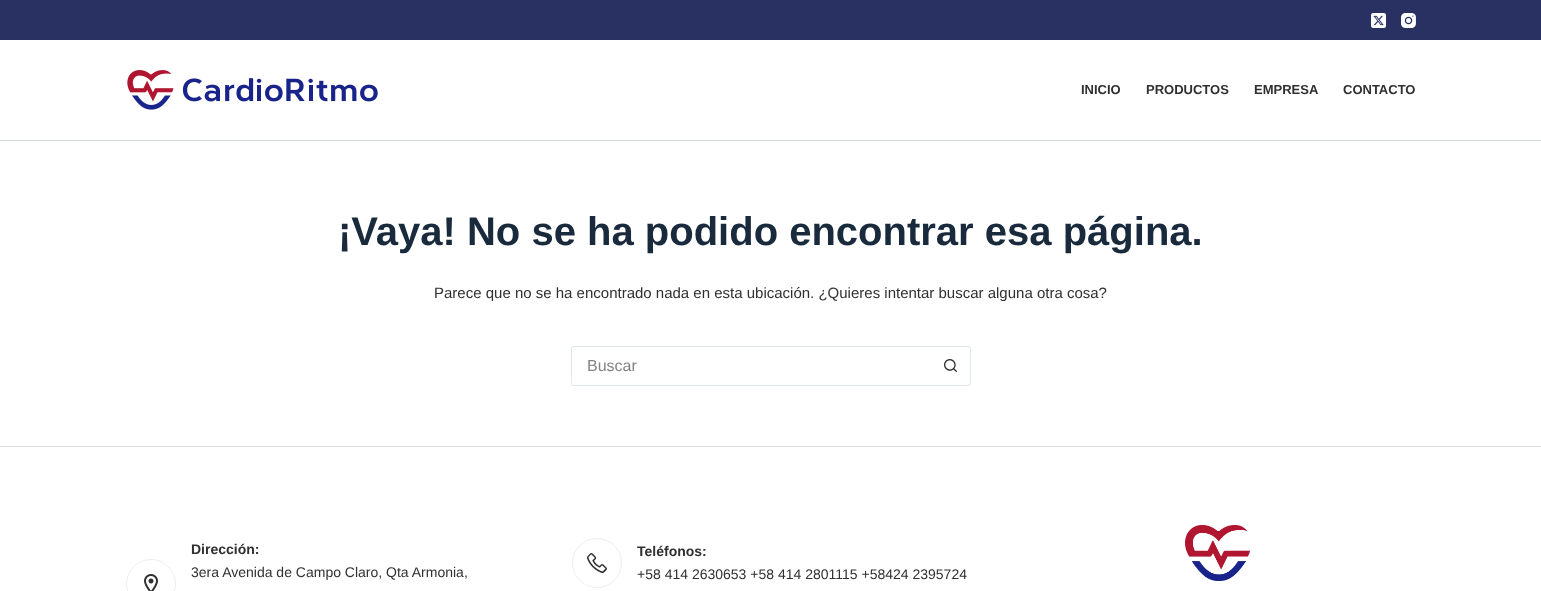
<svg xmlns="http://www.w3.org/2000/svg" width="1541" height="591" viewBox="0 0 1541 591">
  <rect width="100%" height="100%" fill="#fff"/>
  <path d="M0 0h1541v40H0z" fill="#283161"/>
  <image x="1371" y="13" width="15" height="15" href="img/1.png"/>
  <image x="1401" y="13" width="15" height="15" href="img/2.png"/>
  <path d="M0 140h1541v1H0z" fill="#d3d8db"/>
  <image x="127" y="70" width="251" height="40" href="img/3.png"/>
  <path d="M574 346H931V386H574C572 386 571 385 571 383V349C571 347 572 346 574 346ZM574 347H931V385H573C571 383 572 378 572 377V349L573 347Z" fill="#e1e8ed" fill-rule="evenodd"/>
  <path d="M931 346H968C970 346 971 347 971 349V383C971 385 970 386 968 386H931ZM931 347H968C969 347 970 348 970 349V383C970 384 969 385 968 385H931Z" fill="#e1e8ed" fill-rule="evenodd"/>
  <image x="944" y="359" width="13" height="13" href="img/4.png"/>
  <path d="M0 446h1541v1H0z" fill="#ddd"/>
  <circle cx="151" cy="584" r="24.5" fill="none" stroke="#eceef1"/>
  <image x="144" y="574" width="14" height="17" href="img/5.png"/>
  <circle cx="597" cy="563" r="24.5" fill="none" stroke="#eceef1"/>
  <image x="587" y="553" width="20" height="20" href="img/6.png"/>
  <image x="1185" y="525" width="65" height="56" href="img/7.png"/>
  <g font-family="Liberation Sans" font-size="13" font-weight="bold" fill="#303030">
    <text x="1081" y="94">INICIO</text>
    <text x="1146" y="94">PRODUCTOS</text>
    <text x="1254" y="94">EMPRESA</text>
    <text x="1343" y="94">CONTACTO</text>
  </g>
  <text x="338" y="245" font-family="Liberation Sans" font-size="40" font-weight="bold" fill="#192a3d">¡Vaya! No se ha podido encontrar esa página.</text>
  <text x="434" y="298" font-family="Liberation Sans" font-size="15" fill="#303030">Parece que no se ha encontrado nada en esta ubicación. ¿Quieres intentar buscar alguna otra cosa?</text>
  <text x="587" y="371" font-family="Liberation Sans" font-size="16" fill="#838383">Buscar</text>
  <text x="191" y="554" font-family="Liberation Sans" font-size="14" font-weight="bold" fill="#303030">Dirección:</text>
  <text x="191" y="577" font-family="Liberation Sans" font-size="14" fill="#303030">3era Avenida de Campo Claro, Qta Armonia,</text>
  <text x="637" y="556" font-family="Liberation Sans" font-size="14" font-weight="bold" fill="#303030">Teléfonos:</text>
  <text x="637" y="579" font-family="Liberation Sans" font-size="14" fill="#303030">+58 414 2630653 +58 414 2801115 +58424 2395724</text>
</svg>
